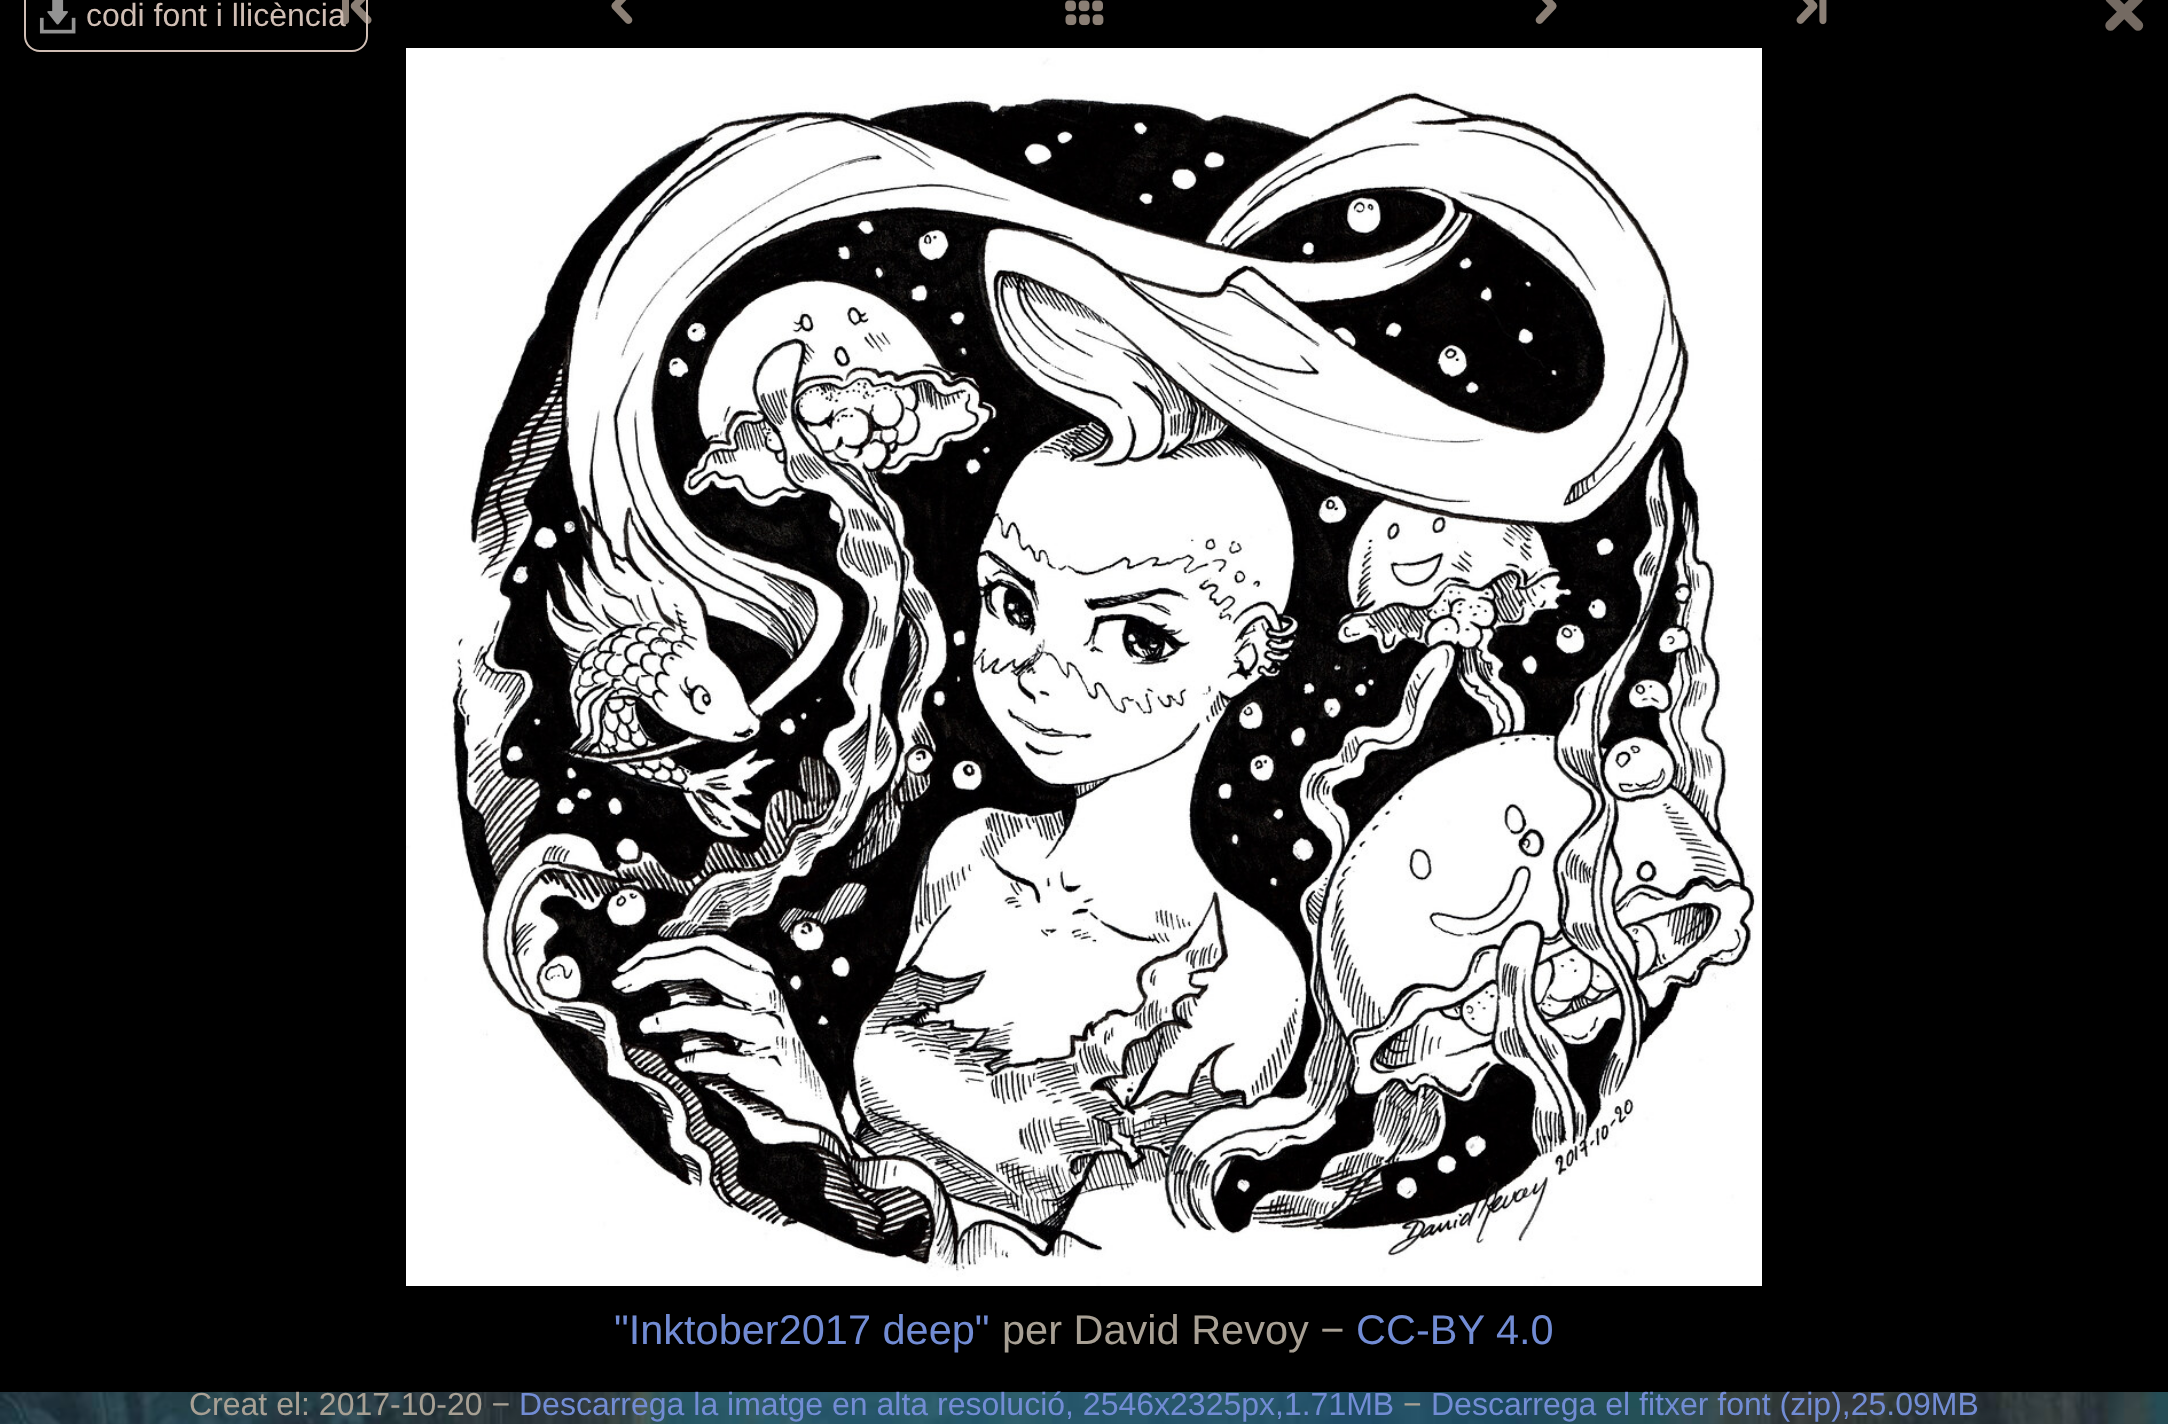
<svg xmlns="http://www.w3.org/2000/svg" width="2168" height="1424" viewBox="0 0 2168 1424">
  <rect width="100%" height="100%" fill="#fff"/>
  <image x="0" y="1392" width="2168" height="32" href="img/1.png"/>
  <path d="M0 0h2168v1392H0z" fill="#000"/>
  <image x="39" y="0" width="37" height="34" href="img/2.png"/>
  <image x="342" y="0" width="30" height="24" href="img/3.png"/>
  <rect x="25" y="-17" width="342" height="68" rx="15" fill="none" stroke="#d0beb4" stroke-width="2"/>
  <image x="611" y="0" width="22" height="24" href="img/4.png"/>
  <image x="1065" y="0" width="39" height="26" href="img/5.png"/>
  <image x="1535" y="0" width="22" height="24" href="img/6.png"/>
  <image x="1796" y="0" width="31" height="25" href="img/7.png"/>
  <path d="M2110.5-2L2138 25.5M2138-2L2110.5 25.5" fill="none" stroke="#746a62" stroke-width="10.4" stroke-linecap="round"/>
  <image x="406" y="48" width="1356" height="1238" href="img/8.png"/>
  <text x="86" y="26" font-family="Liberation Sans" font-size="32" fill="#d0beb4">codi font i llicència</text>
  <text x="614" y="1344" font-family="Liberation Sans" font-size="41.5" fill="#728cd4">"Inktober2017 deep"</text>
  <text x="1002" y="1344" font-family="Liberation Sans" font-size="41.5" fill="#a8a094">per David Revoy −</text>
  <text x="1356" y="1344" font-family="Liberation Sans" font-size="41.5" fill="#728cd4">CC-BY 4.0</text>
  <text x="189" y="1415" font-family="Liberation Sans" font-size="32" fill="#a8a094">Creat el: 2017-10-20 −</text>
  <text x="519" y="1415" font-family="Liberation Sans" font-size="32" fill="#728cd4">Descarrega la imatge en alta resolució, 2546x2325px,1.71MB</text>
  <text x="1403" y="1415" font-family="Liberation Sans" font-size="32" fill="#a8a094">−</text>
  <text x="1431" y="1415" font-family="Liberation Sans" font-size="32" fill="#728cd4">Descarrega el fitxer font (zip),25.09MB</text>
</svg>
